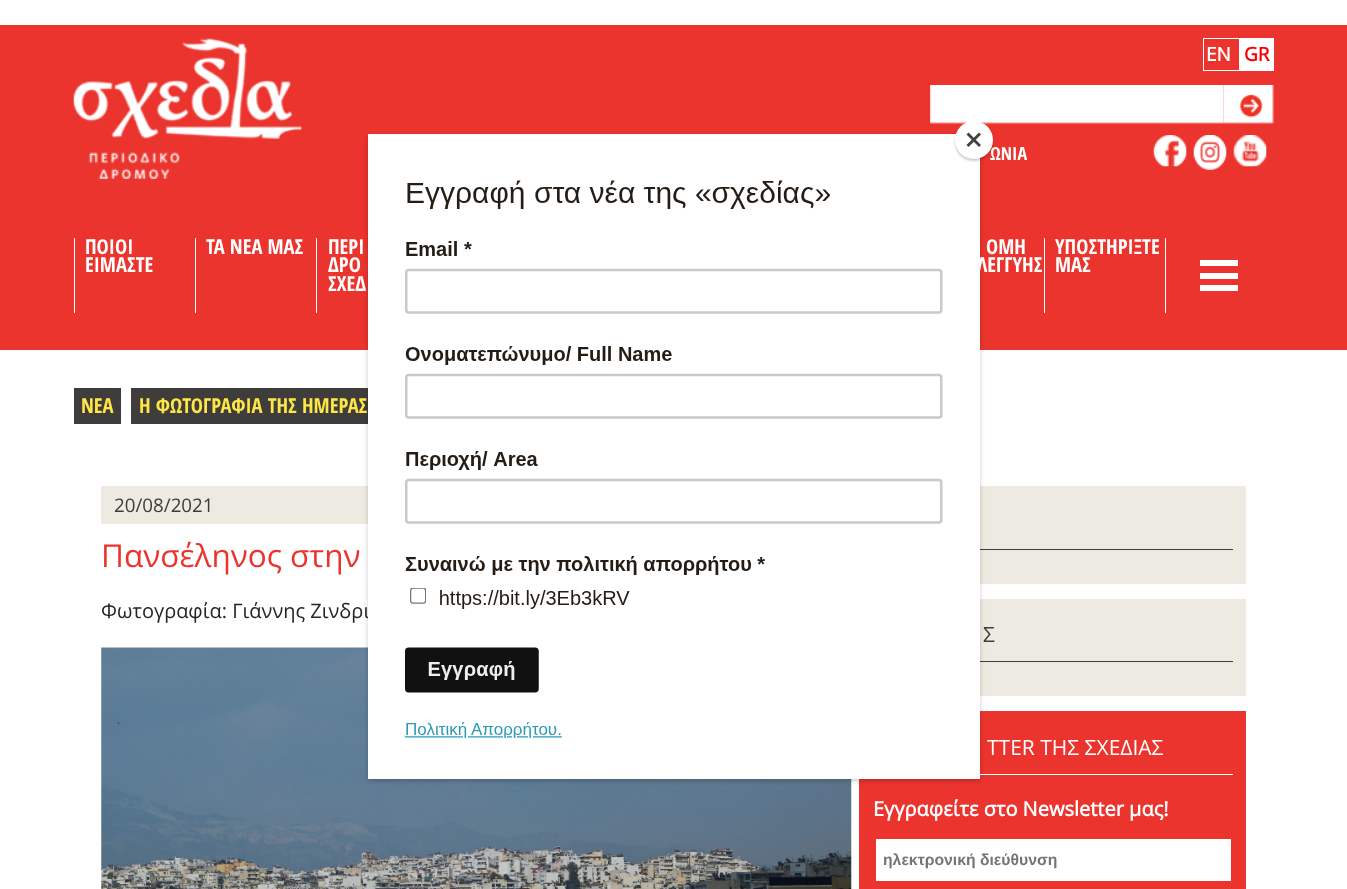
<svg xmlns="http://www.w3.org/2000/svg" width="1347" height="889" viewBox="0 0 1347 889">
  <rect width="100%" height="100%" fill="#fff"/>
  <path d="M0 25h1347v325H0z" fill="#eb342e"/>
  <image x="73" y="38" width="229" height="141" href="img/1.png"/>
  <path d="M1203 38h37v1H1203z" fill="#fff"/>
  <path d="M1203 70h28v1H1203z" fill="#fff"/>
  <path d="M1203 38h1v33H1203z" fill="#fff"/>
  <path d="M1239 38h35v33H1239z" fill="#fff"/>
  <path d="M1231 70h9v1H1231z" fill="#fff"/>
  <image x="930" y="85" width="294" height="39" href="img/2.png"/>
  <image x="1223" y="85" width="51" height="39" href="img/3.png"/>
  <image x="1153" y="135" width="34" height="32" href="img/4.png"/>
  <image x="1193" y="135" width="34" height="35" href="img/5.png"/>
  <image x="1233" y="135" width="34" height="32" href="img/6.png"/>
  <path d="M195 238h1v75H195z" fill="#fff"/>
  <path d="M74 238h1v75H74z" fill="#fff"/>
  <path d="M316 238h1v75H316z" fill="#fff"/>
  <path d="M1044 238h1v75H1044z" fill="#fff"/>
  <path d="M1165 238h1v75H1165z" fill="#fff"/>
  <path d="M1200 260h38v6H1200z" fill="#fff"/>
  <path d="M1200 273h38v6H1200z" fill="#fff"/>
  <path d="M1200 285h38v6H1200z" fill="#fff"/>
  <path d="M74 388h47v36H74z" fill="#3e3d3b"/>
  <path d="M131 388h237v36H131z" fill="#3e3d3b"/>
  <path d="M101 486h267v38H101z" fill="#edebe1"/>
  <image x="101" y="647" width="751" height="242" href="img/7.png"/>
  <path d="M980 486h266v98H980z" fill="#edebe1"/>
  <path d="M980 549h253v1H980z" fill="#3e3d3b"/>
  <path d="M980 599h266v97H980z" fill="#edebe1"/>
  <path d="M980 661h253v1H980z" fill="#3e3d3b"/>
  <path d="M859 711h387v178H859z" fill="#eb342e"/>
  <path d="M980 774h253v1H980z" fill="#fff"/>
  <path d="M876 839h355v42H876z" fill="#fff"/>
  <path d="M368 136h612v645H368z" fill="#00000033" filter="blur(2.5px)"/>
  <text x="1206" y="61" font-family="Open Sans" font-size="19" font-weight="bold" fill="#fff">EN</text>
  <text x="1244" y="61" font-family="Open Sans" font-size="19" font-weight="bold" fill="#f00">GR</text>
  <text x="990" y="160" font-family="Open Sans Condensed" font-size="18" font-weight="bold" fill="#fff">ΩΝΙΑ</text>
  <g font-family="Open Sans Condensed" font-size="20.5" font-weight="bold" fill="#fff">
    <text x="85" y="254">ΠΟΙΟΙ</text>
    <text x="85" y="272">ΕΙΜΑΣΤΕ</text>
    <text x="206" y="254">ΤΑ ΝΕΑ ΜΑΣ</text>
    <text x="328" y="254">ΠΕΡΙ</text>
    <text x="328" y="272">ΔΡΟ</text>
    <text x="328" y="291">ΣΧΕΔ</text>
    <text x="986" y="254">ΟΜΗ</text>
    <text x="977" y="272">ΛΕΓΓΥΗΣ</text>
    <text x="1055" y="254">ΥΠΟΣΤΗΡΙΞΤΕ</text>
    <text x="1055" y="272">ΜΑΣ</text>
  </g>
  <g font-family="Open Sans Condensed" font-size="20.5" font-weight="bold" fill="#ffe647">
    <text x="81" y="413">ΝΕΑ</text>
    <text x="139" y="413">Η ΦΩΤΟΓΡΑΦΙΑ ΤΗΣ ΗΜΕΡΑΣ</text>
  </g>
  <text x="114" y="512" font-family="Open Sans" font-size="18.75" fill="#3e3d3b">20/08/2021</text>
  <text x="101" y="567" font-family="Open Sans" font-size="31.5" fill="#eb342e">Πανσέληνος στην</text>
  <text x="101" y="618" font-family="Open Sans" font-size="20" fill="#252525">Φωτογραφία: Γιάννης Ζινδρι</text>
  <text x="983" y="642" font-family="Open Sans" font-size="21" fill="#3e3d3b">Σ</text>
  <text x="987" y="755" font-family="Open Sans" font-size="21" fill="#fff">TTER ΤΗΣ ΣΧΕΔΙΑΣ</text>
  <text x="873" y="816" font-family="Open Sans" font-size="20" font-weight="bold" fill="#fff">Εγγραφείτε στο Newsletter μας!</text>
  <text x="883" y="865" font-family="Liberation Sans" font-size="15.75" font-weight="bold" fill="#757575">ηλεκτρονική διεύθυνση</text>
  <image x="368" y="134" width="612" height="645" href="img/8.png"/>
  <rect x="955" y="124" width="38" height="37" rx="18.5" fill="#00000033" filter="blur(1px)"/>
  <circle cx="974" cy="140" r="19" fill="#fff"/>
  <path d="M979 132.5L981 134.5L968.5 147L966.5 145Z" fill="#414141"/>
  <path d="M966.5 134.5L968.5 132.5L981 145L979 147Z" fill="#414141"/>
</svg>
